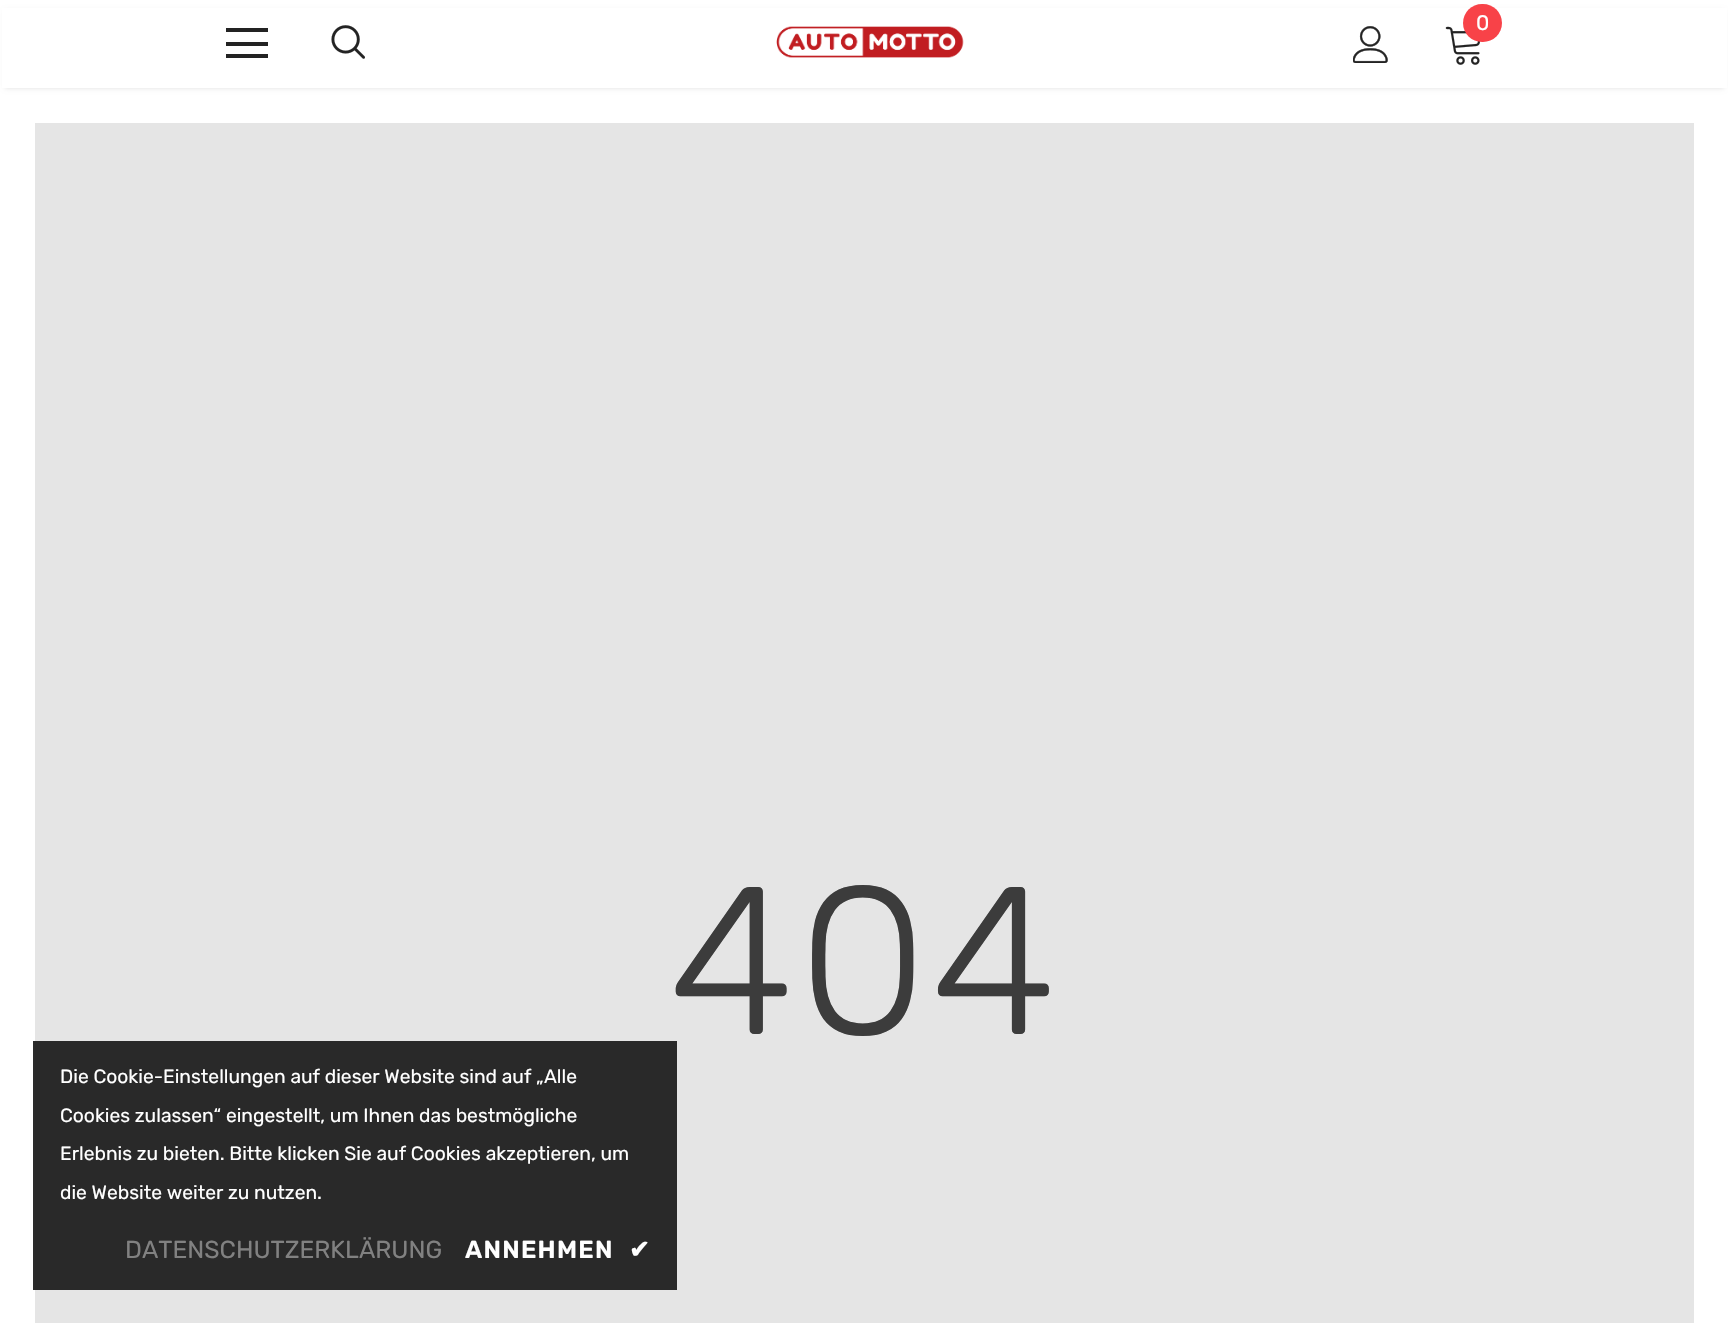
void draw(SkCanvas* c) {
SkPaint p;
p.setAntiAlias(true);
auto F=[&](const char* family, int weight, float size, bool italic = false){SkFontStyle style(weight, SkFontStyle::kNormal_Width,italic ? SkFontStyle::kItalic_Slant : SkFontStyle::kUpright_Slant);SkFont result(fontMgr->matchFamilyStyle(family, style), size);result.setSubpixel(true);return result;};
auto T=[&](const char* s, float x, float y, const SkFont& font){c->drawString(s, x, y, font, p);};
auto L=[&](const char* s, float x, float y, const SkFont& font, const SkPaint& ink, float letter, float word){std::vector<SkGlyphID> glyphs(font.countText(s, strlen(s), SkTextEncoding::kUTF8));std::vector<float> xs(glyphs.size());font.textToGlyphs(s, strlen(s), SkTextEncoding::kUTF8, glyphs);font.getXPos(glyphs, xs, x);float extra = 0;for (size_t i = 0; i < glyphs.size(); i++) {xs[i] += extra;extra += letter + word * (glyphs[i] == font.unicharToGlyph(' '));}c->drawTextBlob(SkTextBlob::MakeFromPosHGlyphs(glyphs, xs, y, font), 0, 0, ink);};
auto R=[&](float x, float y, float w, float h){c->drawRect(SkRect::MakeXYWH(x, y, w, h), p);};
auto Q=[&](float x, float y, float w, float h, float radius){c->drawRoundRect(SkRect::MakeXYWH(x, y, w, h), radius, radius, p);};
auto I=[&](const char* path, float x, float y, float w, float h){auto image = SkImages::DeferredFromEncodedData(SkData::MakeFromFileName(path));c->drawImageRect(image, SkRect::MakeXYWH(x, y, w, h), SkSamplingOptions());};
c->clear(0xffffffff);
p.setColor(0xff2b2b2b);
R(33,1041,2,249);
p.setColor(0x1f000000);
p.setMaskFilter(SkMaskFilter::MakeBlur(kNormal_SkBlurStyle, 2.5));
c->drawRect(SkRect::MakeXYWH(5,11,1719,77),p);
p.setMaskFilter(nullptr);
p.setColor(0xffffffff);
R(2,8,1725,80);
I("1.png",1445,26,36,39);
p.setColor(0xfff84248);
Q(1463,4,39,38,19);
auto f1 = F("Rubik",400,21);
p.setColor(0xffffffff);
T("0",1476,30,f1);
I("2.png",1353,26,35,37);
p.setColor(0xff232323);
R(226,28,42,4);
R(226,42,42,4);
R(226,54,42,4);
I("3.png",331,25,34,34);
I("4.png",776,26,188,32);
p.setColor(0xffe5e5e5);
R(35,123,1659,1200);
p.setColor(0xff292929);
R(35,1041,642,249);
auto f2 = F("Rubik",300,210);
p.setColor(0xff3c3c3c);
L("404",669,1034,f2,p,4,0);
auto f3 = F("Rubik",400,19.25);
p.setColor(0xffffffff);
T("Die Cookie-Einstellungen auf dieser Website sind auf „Alle",60,1083,f3);
T("Cookies zulassen“ eingestellt, um Ihnen das bestmögliche",60,1122,f3);
T("Erlebnis zu bieten. Bitte klicken Sie auf Cookies akzeptieren, um",60,1160,f3);
T("die Website weiter zu nutzen.",60,1199,f3);
auto f4 = F("Rubik",400,24.5);
p.setColor(0xff818181);
T("DATENSCHUTZERKLÄRUNG",125,1258,f4);
auto f5 = F("Rubik",600,24.5);
p.setColor(0xffffffff);
L("ANNEHMEN",465,1258,f5,p,1.25,0);
auto f6 = F("DejaVu Sans",700,24.5);
L("✔",629,1258,f6,p,1.25,0);
}
